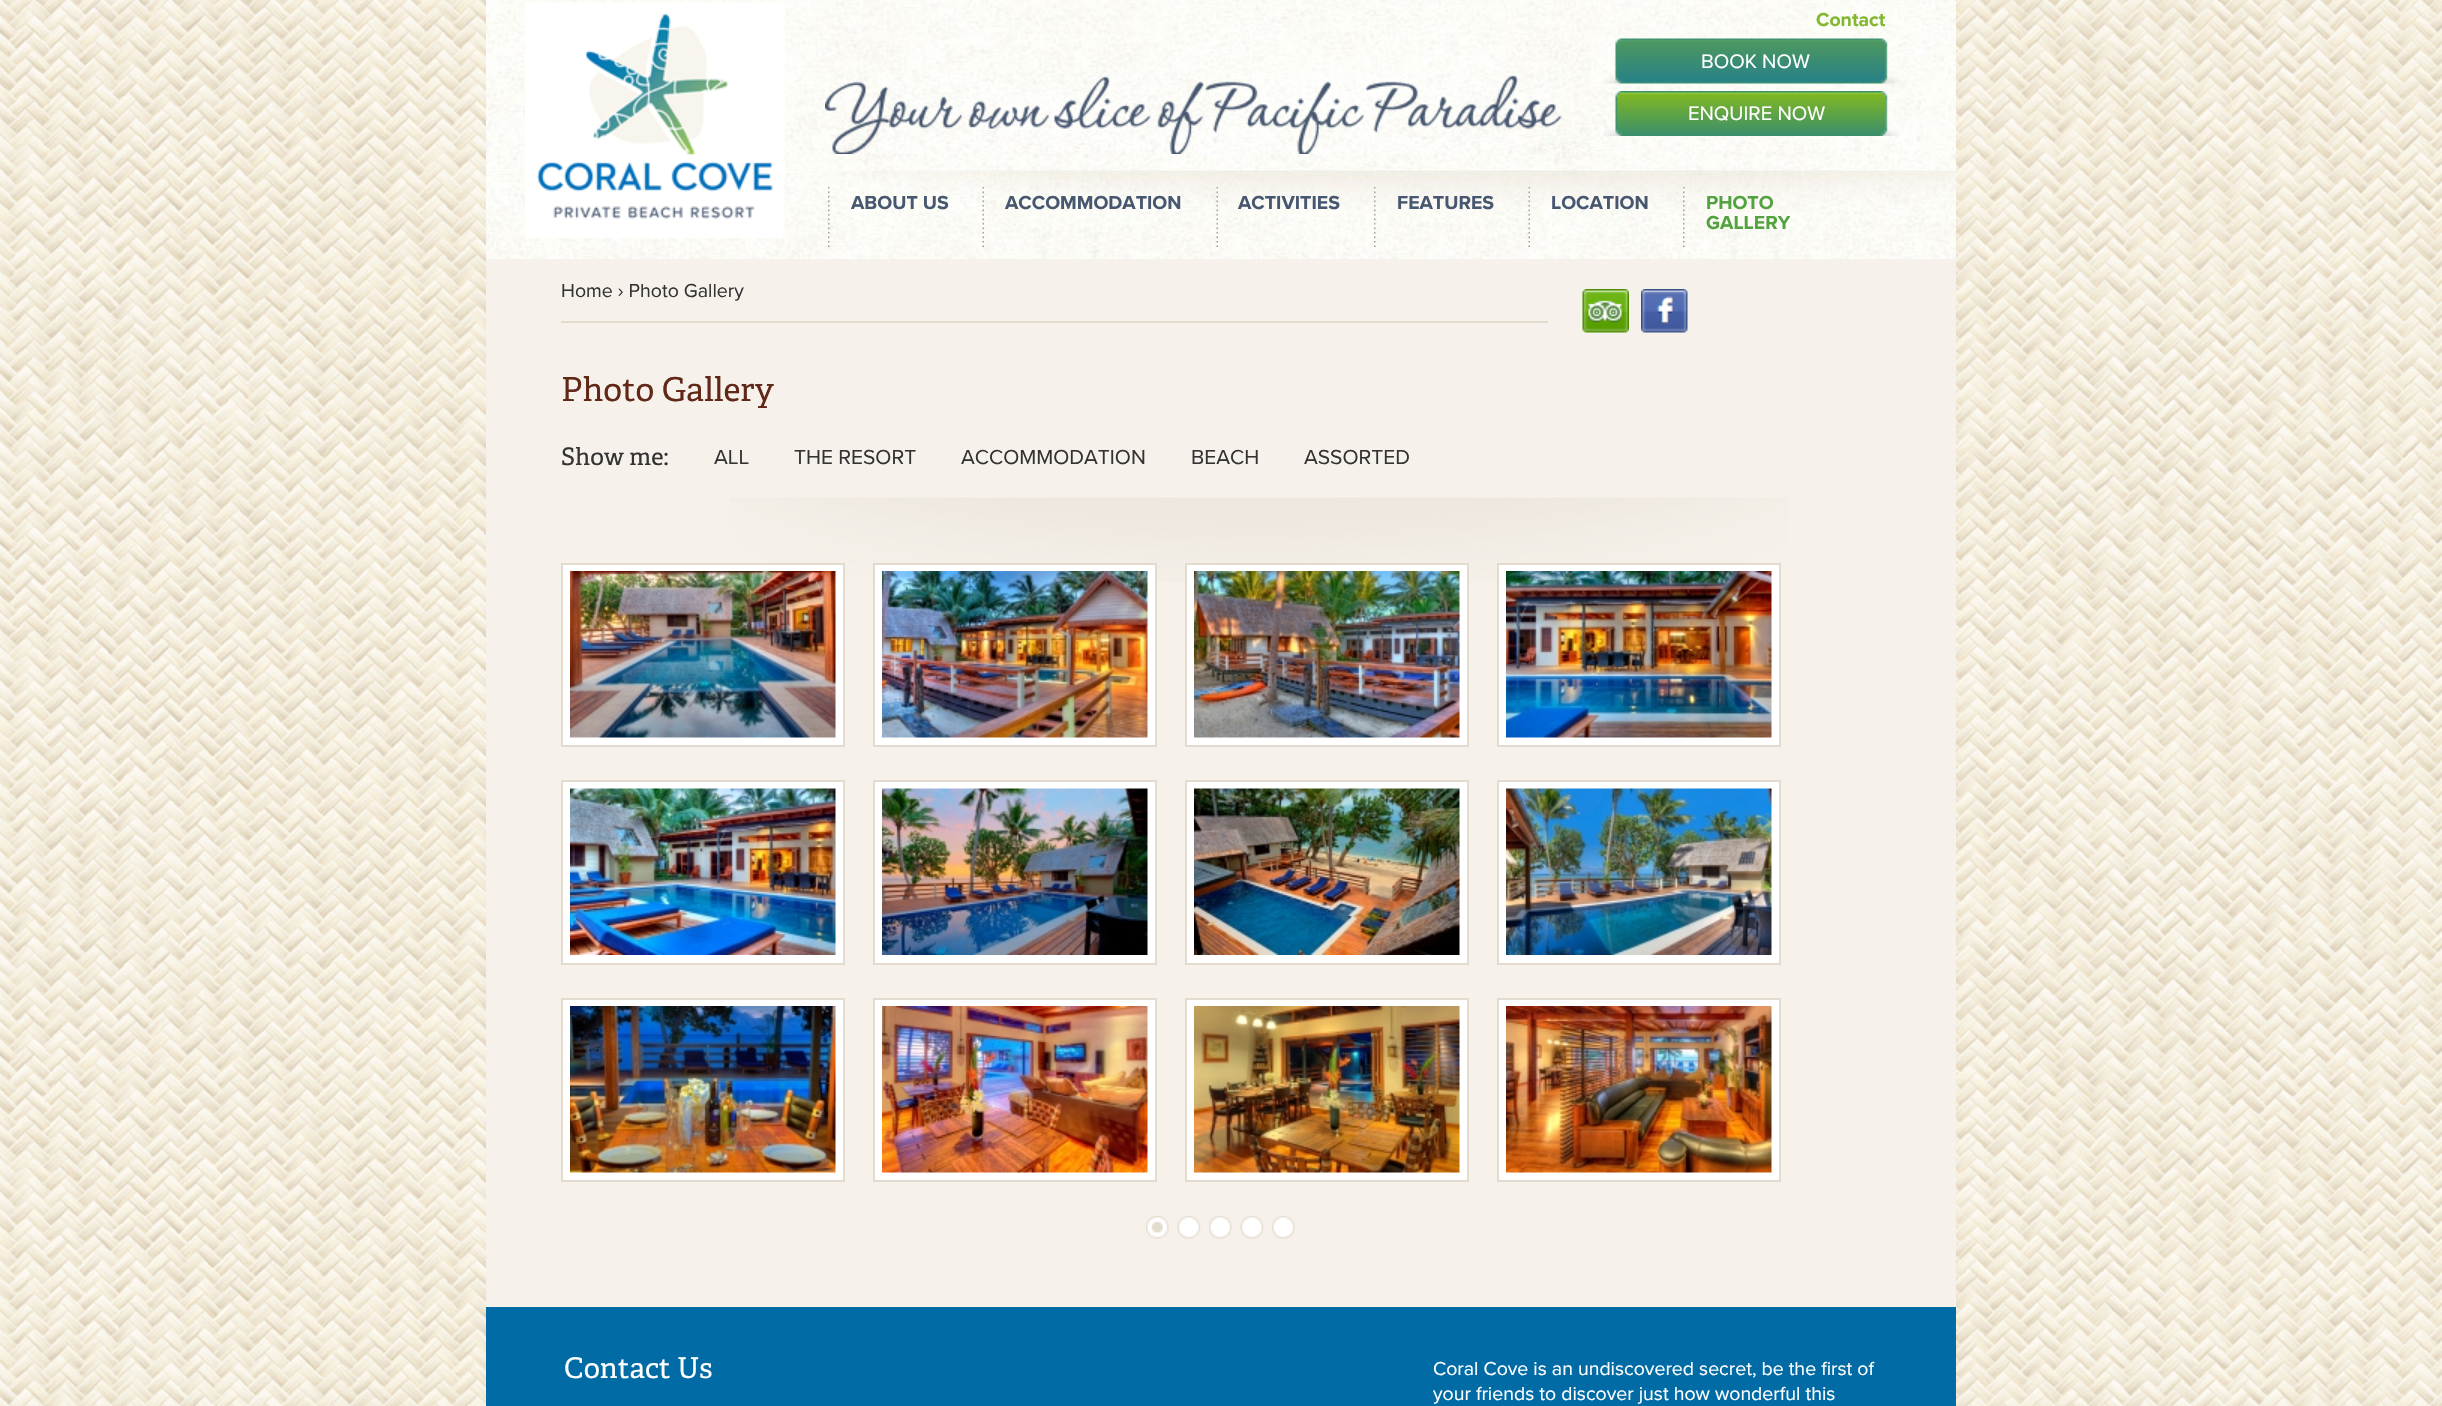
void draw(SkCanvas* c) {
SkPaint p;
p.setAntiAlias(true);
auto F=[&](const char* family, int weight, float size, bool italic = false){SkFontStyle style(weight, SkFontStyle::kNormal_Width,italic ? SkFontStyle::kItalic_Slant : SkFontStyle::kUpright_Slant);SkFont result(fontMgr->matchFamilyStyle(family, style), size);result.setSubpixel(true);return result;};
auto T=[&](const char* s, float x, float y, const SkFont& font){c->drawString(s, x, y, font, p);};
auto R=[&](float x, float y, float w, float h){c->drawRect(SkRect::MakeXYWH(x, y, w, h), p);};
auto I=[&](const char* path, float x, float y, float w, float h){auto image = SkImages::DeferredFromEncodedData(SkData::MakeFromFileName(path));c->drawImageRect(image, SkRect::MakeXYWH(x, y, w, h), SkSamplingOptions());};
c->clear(0xffffffff);
I("1.png",0,0,2442,1406);
p.setColor(0xfff6f2eb);
R(486,259,1470,1048);
I("2.png",486,0,1470,259);
I("3.png",525,2,260,236);
auto f1 = F("Proxima Nova",700,19.5);
p.setColor(0xff84b732);
T("Contact",1816,26,f1);
I("4.png",1603,38,297,46);
auto f2 = F("Proxima Nova",400,20.25);
p.setColor(0xffffffff);
T("BOOK NOW",1701,68,f2);
I("5.png",1603,91,296,45);
T("ENQUIRE NOW",1688,120,f2);
I("6.png",828,185,2,62);
p.setColor(0xff485770);
T("ABOUT US",851,209,f1);
I("7.png",982,185,2,62);
T("ACCOMMODATION",1005,209,f1);
I("8.png",1216,185,2,62);
T("ACTIVITIES",1238,209,f1);
I("9.png",1374,185,2,62);
T("FEATURES",1397,209,f1);
I("10.png",1528,185,2,62);
T("LOCATION",1551,209,f1);
I("11.png",1683,185,2,62);
p.setColor(0xff52a240);
T("PHOTO",1706,209,f1);
T("GALLERY",1706,229,f1);
I("12.png",1582,289,47,44);
I("13.png",1641,289,47,44);
I("14.png",825,73,737,81);
p.setColor(0xffe4dbcf);
R(561,321,987,2);
auto f3 = F("Proxima Nova",400,19.5);
p.setColor(0xff333333);
T("Home › Photo Gallery",561,297,f3);
auto f4 = F("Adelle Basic",400,33);
p.setColor(0xff612717);
T("Photo Gallery",561,401,f4);
auto f5 = F("Adelle Basic",400,24);
p.setColor(0xff333333);
T("Show me:",561,465,f5);
auto f6 = F("Proxima Nova",400,21);
T("ALL",714,464,f6);
T("THE RESORT",794,464,f6);
T("ACCOMMODATION",961,464,f6);
T("BEACH",1191,464,f6);
T("ASSORTED",1304,464,f6);
I("15.png",729,497,1059,85);
p.setColor(0xffffffff);
c->drawRect(SkRect::MakeXYWH(562,564,282,182),p);
p.setStroke(true);
p.setStrokeWidth(2);
p.setColor(0xffe4dbcf);
c->drawRect(SkRect::MakeXYWH(562,564,282,182),p);
I("16.png",570,571,266,167);
p.setStroke(false);
p.setColor(0xffffffff);
c->drawRect(SkRect::MakeXYWH(874,564,282,182),p);
p.setStroke(true);
p.setColor(0xffe4dbcf);
c->drawRect(SkRect::MakeXYWH(874,564,282,182),p);
I("17.png",882,571,266,167);
p.setStroke(false);
p.setColor(0xffffffff);
c->drawRect(SkRect::MakeXYWH(1186,564,282,182),p);
p.setStroke(true);
p.setColor(0xffe4dbcf);
c->drawRect(SkRect::MakeXYWH(1186,564,282,182),p);
I("18.png",1194,571,266,167);
p.setStroke(false);
p.setColor(0xffffffff);
c->drawRect(SkRect::MakeXYWH(1498,564,282,182),p);
p.setStroke(true);
p.setColor(0xffe4dbcf);
c->drawRect(SkRect::MakeXYWH(1498,564,282,182),p);
I("19.png",1506,571,266,167);
p.setStroke(false);
p.setColor(0xffffffff);
c->drawRect(SkRect::MakeXYWH(562,781,282,183),p);
p.setStroke(true);
p.setColor(0xffe4dbcf);
c->drawRect(SkRect::MakeXYWH(562,781,282,183),p);
I("20.png",570,788,266,167);
p.setStroke(false);
p.setColor(0xffffffff);
c->drawRect(SkRect::MakeXYWH(874,781,282,183),p);
p.setStroke(true);
p.setColor(0xffe4dbcf);
c->drawRect(SkRect::MakeXYWH(874,781,282,183),p);
I("21.png",882,788,266,167);
p.setStroke(false);
p.setColor(0xffffffff);
c->drawRect(SkRect::MakeXYWH(1186,781,282,183),p);
p.setStroke(true);
p.setColor(0xffe4dbcf);
c->drawRect(SkRect::MakeXYWH(1186,781,282,183),p);
I("22.png",1194,788,266,167);
p.setStroke(false);
p.setColor(0xffffffff);
c->drawRect(SkRect::MakeXYWH(1498,781,282,183),p);
p.setStroke(true);
p.setColor(0xffe4dbcf);
c->drawRect(SkRect::MakeXYWH(1498,781,282,183),p);
I("23.png",1506,788,266,167);
p.setStroke(false);
p.setColor(0xffffffff);
c->drawRect(SkRect::MakeXYWH(562,999,282,182),p);
p.setStroke(true);
p.setColor(0xffe4dbcf);
c->drawRect(SkRect::MakeXYWH(562,999,282,182),p);
I("24.png",570,1006,266,167);
p.setStroke(false);
p.setColor(0xffffffff);
c->drawRect(SkRect::MakeXYWH(874,999,282,182),p);
p.setStroke(true);
p.setColor(0xffe4dbcf);
c->drawRect(SkRect::MakeXYWH(874,999,282,182),p);
I("25.png",882,1006,266,167);
p.setStroke(false);
p.setColor(0xffffffff);
c->drawRect(SkRect::MakeXYWH(1186,999,282,182),p);
p.setStroke(true);
p.setColor(0xffe4dbcf);
c->drawRect(SkRect::MakeXYWH(1186,999,282,182),p);
I("26.png",1194,1006,266,167);
p.setStroke(false);
p.setColor(0xffffffff);
c->drawRect(SkRect::MakeXYWH(1498,999,282,182),p);
p.setStroke(true);
p.setColor(0xffe4dbcf);
c->drawRect(SkRect::MakeXYWH(1498,999,282,182),p);
I("27.png",1506,1006,266,167);
I("28.png",1146,1216,23,23);
I("29.png",1177,1216,24,23);
I("30.png",1209,1216,23,23);
I("29.png",1240,1216,24,23);
I("30.png",1272,1216,23,23);
p.setStroke(false);
p.setColor(0xff006ba4);
R(486,1307,1470,99);
auto f7 = F("Adelle Basic",400,28.5);
p.setColor(0xffffffff);
T("Contact Us",564,1378,f7);
T("Coral Cove is an undiscovered secret, be the first of",1433,1375,f3);
T("your friends to discover just how wonderful this",1433,1400,f3);
}
